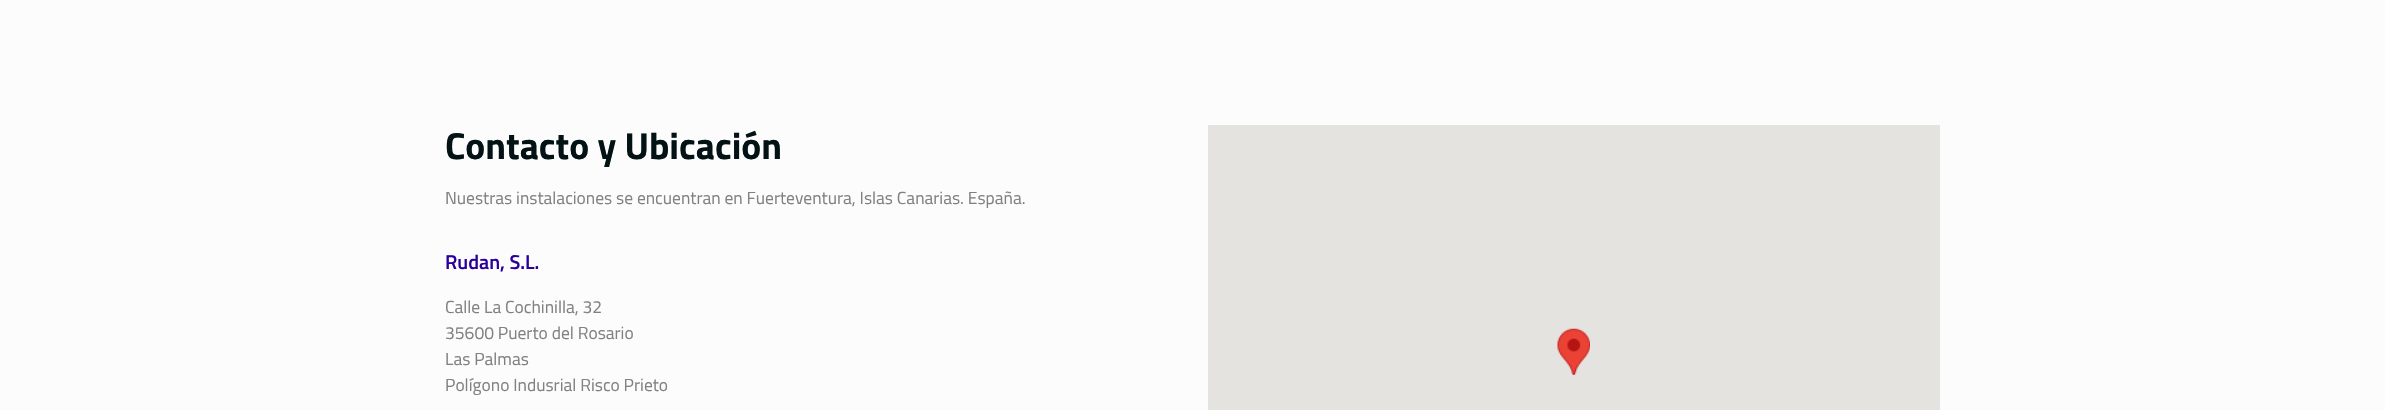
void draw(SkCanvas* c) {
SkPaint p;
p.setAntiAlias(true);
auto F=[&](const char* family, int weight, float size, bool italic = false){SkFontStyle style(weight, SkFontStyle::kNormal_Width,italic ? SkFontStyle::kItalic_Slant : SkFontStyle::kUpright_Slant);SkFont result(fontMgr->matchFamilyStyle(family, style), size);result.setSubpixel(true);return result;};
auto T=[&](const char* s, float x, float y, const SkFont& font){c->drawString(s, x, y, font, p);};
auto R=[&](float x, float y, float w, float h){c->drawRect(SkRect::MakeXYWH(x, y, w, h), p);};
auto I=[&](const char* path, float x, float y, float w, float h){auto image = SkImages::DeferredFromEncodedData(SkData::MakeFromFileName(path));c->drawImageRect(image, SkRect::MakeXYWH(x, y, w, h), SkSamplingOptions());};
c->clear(0xfffcfcfc);
auto f1 = F("Titillium Web",700,37.5);
p.setColor(0xff031214);
T("Contacto y Ubicación",445,159,f1);
auto f2 = F("Titillium Web",400,17.5);
p.setColor(0xff818181);
T("Nuestras instalaciones se encuentran en Fuerteventura, Islas Canarias. España.",445,204,f2);
auto f3 = F("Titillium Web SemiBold",600,20);
p.setColor(0xff2a009c);
T("Rudan, S.L.",445,269,f3);
p.setColor(0xff818181);
T("Calle La Cochinilla, 32",445,313,f2);
T("35600 Puerto del Rosario",445,339,f2);
T("Las Palmas",445,365,f2);
T("Polígono Indusrial Risco Prieto",445,391,f2);
p.setColor(0xffe5e3df);
R(1208,125,732,285);
I("1.png",1557,328,33,47);
}
